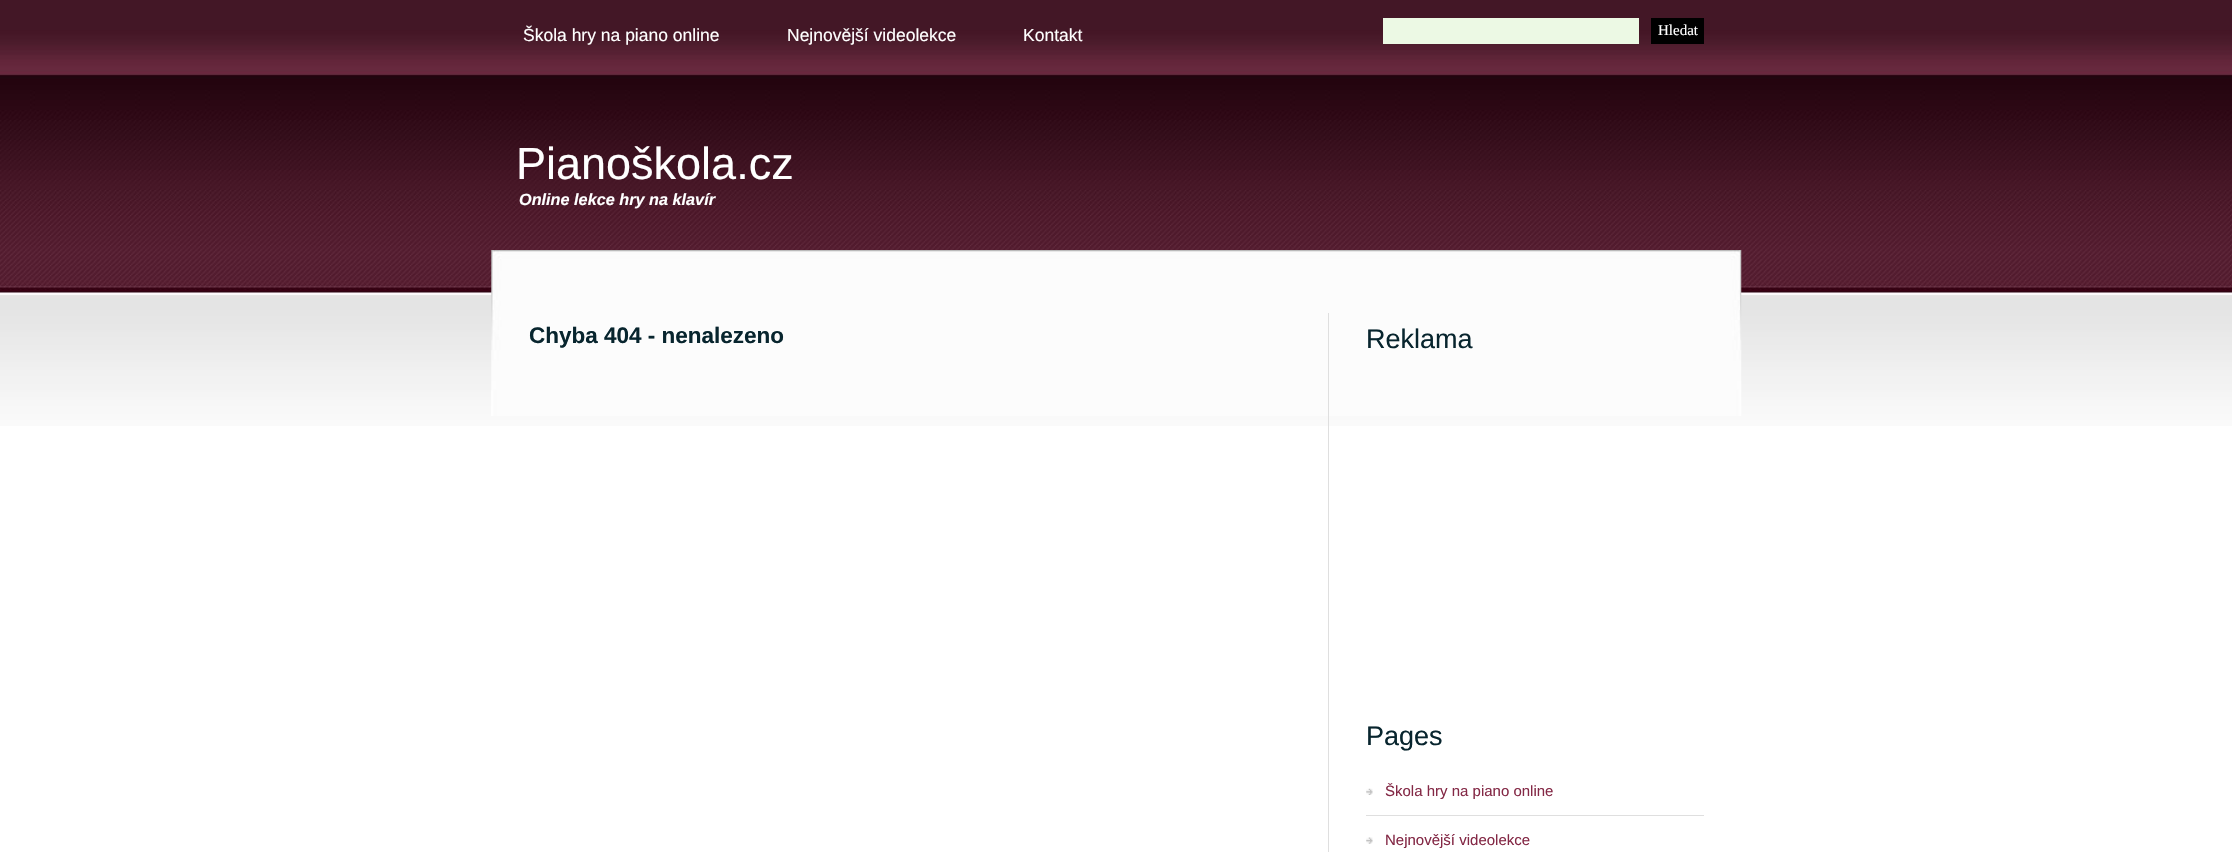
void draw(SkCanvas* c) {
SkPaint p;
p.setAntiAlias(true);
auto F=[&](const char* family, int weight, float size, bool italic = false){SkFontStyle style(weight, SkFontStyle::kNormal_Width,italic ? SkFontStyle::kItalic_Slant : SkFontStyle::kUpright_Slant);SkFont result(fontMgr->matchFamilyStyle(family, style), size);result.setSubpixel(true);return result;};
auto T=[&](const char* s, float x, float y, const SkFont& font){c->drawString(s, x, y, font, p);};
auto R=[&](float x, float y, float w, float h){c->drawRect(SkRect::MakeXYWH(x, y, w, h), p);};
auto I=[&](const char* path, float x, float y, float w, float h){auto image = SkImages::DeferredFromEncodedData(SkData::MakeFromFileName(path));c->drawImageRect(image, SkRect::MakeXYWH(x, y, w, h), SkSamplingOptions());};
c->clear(0xffffffff);
I("1.png",0,0,2232,426);
auto f1 = F("Liberation Sans",400,17.5);
p.setColor(0xffffffff);
T("Škola hry na piano online",523,41,f1);
T("Nejnovější videolekce",787,41,f1);
T("Kontakt",1023,41,f1);
p.setColor(0xffecf9e4);
R(1383,18,256,26);
p.setColor(0xff000000);
R(1651,18,53,26);
auto f2 = F("Liberation Serif",400,15);
p.setColor(0xffffffff);
T("Hledat",1658,35,f2);
auto f3 = F("Liberation Sans",400,45);
T("Pianoškola.cz",516,179,f3);
auto f4 = F("Liberation Sans",700,16.25,true);
T("Online lekce hry na klavír",519,205,f4);
I("2.png",491,250,1251,166);
auto f5 = F("Liberation Sans",700,22.5);
p.setColor(0xff08252e);
T("Chyba 404 - nenalezeno",529,343,f5);
p.setColor(0xffdfdfdf);
R(1328,313,1,539);
auto f6 = F("Liberation Sans",400,27);
p.setColor(0xff08252e);
T("Reklama",1366,348,f6);
T("Pages",1366,745,f6);
I("3.png",1366,788,7,7);
p.setColor(0xffdfdfdf);
R(1366,815,338,1);
auto f7 = F("Liberation Sans",400,15);
p.setColor(0xff842946);
T("Škola hry na piano online",1385,796,f7);
I("4.png",1366,837,7,7);
T("Nejnovější videolekce",1385,845,f7);
}
